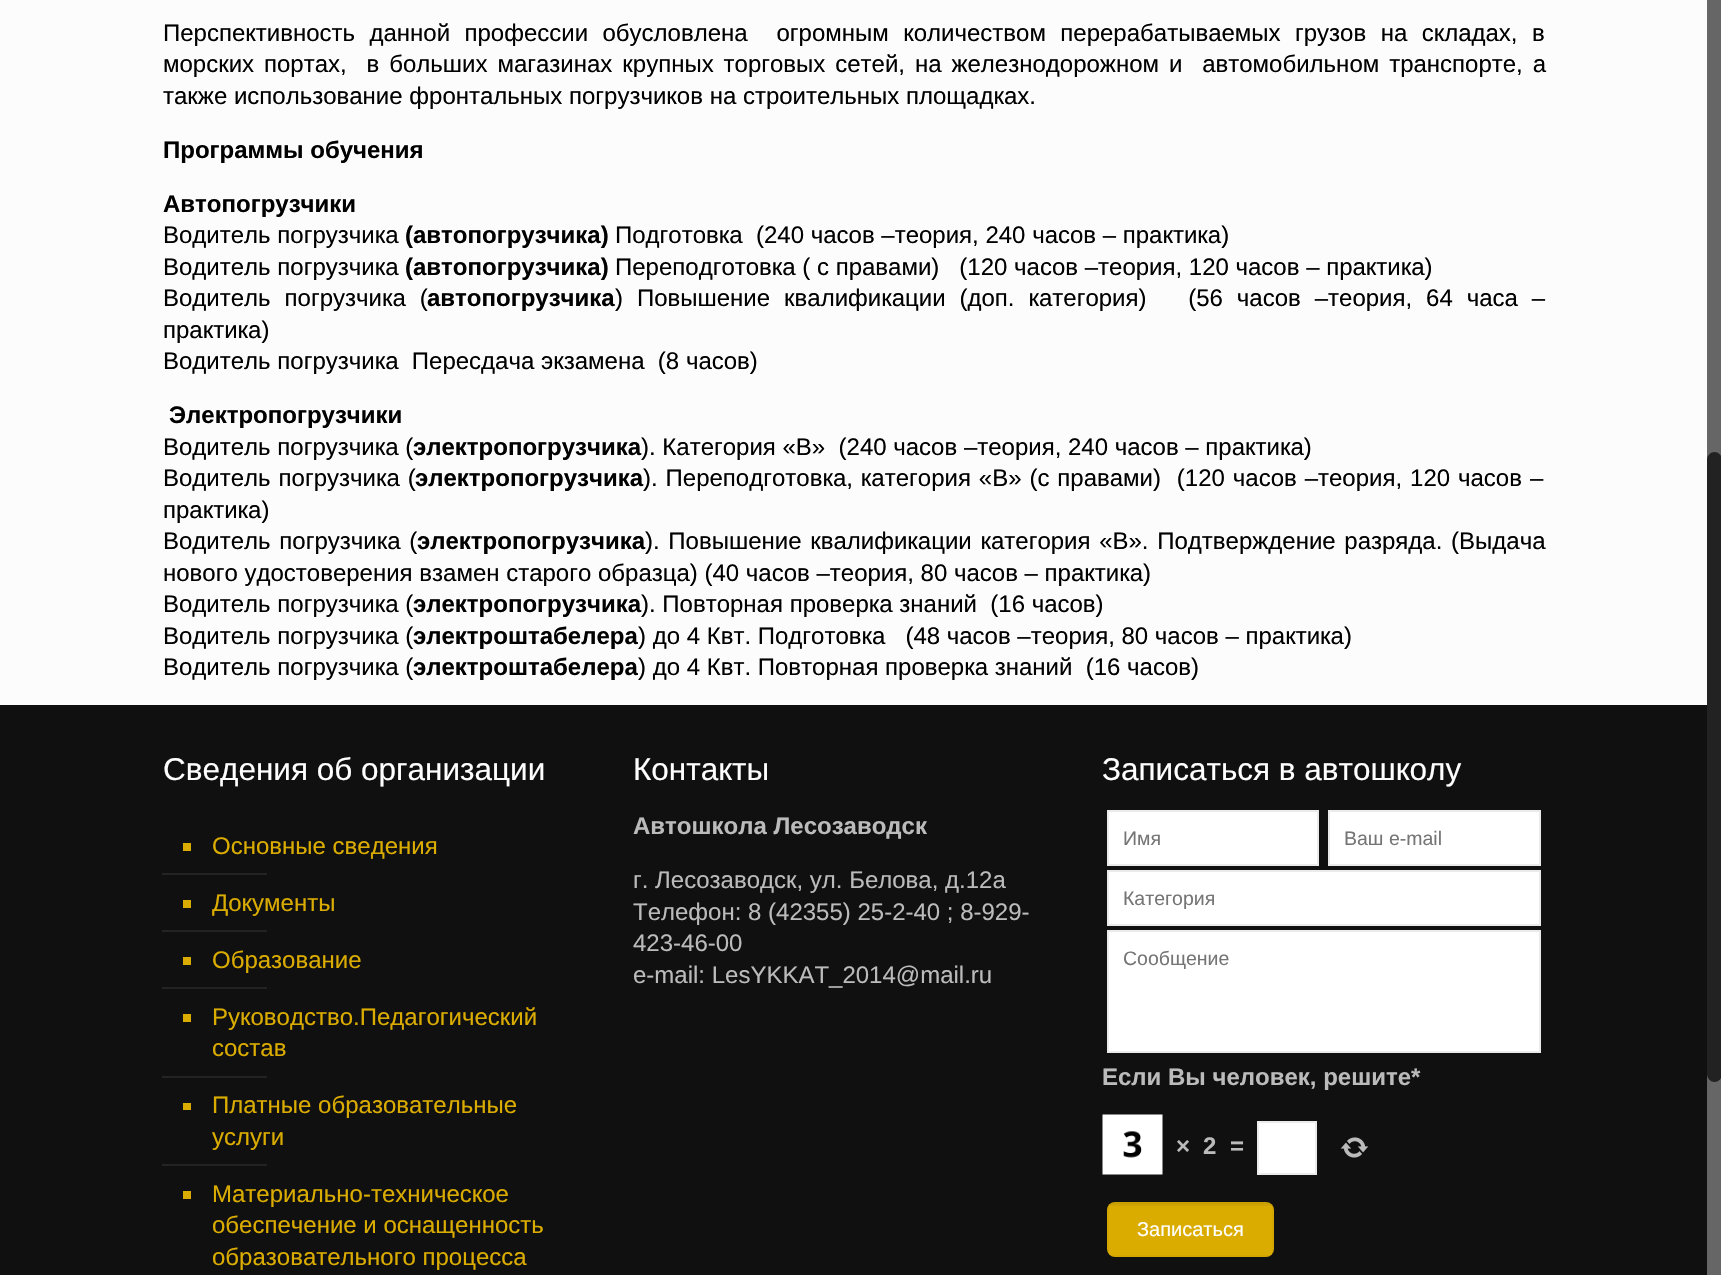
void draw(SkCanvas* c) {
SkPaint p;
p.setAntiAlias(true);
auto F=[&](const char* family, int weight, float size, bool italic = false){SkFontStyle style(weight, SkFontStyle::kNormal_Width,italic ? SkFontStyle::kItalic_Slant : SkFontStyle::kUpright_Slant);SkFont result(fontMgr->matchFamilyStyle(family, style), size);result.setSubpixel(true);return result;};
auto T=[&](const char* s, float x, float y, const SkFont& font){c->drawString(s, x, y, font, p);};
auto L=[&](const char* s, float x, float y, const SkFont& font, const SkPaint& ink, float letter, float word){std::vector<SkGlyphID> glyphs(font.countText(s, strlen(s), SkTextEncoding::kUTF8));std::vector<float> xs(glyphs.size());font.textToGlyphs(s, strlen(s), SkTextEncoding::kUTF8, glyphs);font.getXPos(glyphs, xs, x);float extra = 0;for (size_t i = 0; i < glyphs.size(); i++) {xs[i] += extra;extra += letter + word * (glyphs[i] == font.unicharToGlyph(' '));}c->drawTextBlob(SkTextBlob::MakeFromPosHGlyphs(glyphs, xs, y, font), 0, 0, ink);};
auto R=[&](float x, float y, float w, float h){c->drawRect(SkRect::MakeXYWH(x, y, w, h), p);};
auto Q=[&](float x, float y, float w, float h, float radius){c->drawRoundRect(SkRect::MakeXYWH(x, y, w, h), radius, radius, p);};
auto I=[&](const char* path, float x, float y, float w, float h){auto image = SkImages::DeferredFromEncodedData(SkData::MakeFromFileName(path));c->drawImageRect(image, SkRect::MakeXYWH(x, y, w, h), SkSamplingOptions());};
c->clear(0xfffcfcfc);
auto f1 = F("Liberation Sans",400,24);
p.setColor(0xff000000);
L("Перспективность данной профессии обусловлена  огромным количеством перерабатываемых грузов на складах, в",163,41,f1,p,0,7.75);
L("морских портах,  в больших магазинах крупных торговых сетей, на железнодорожном и  автомобильном транспорте, а",163,72,f1,p,0,3.25);
T("также использование фронтальных погрузчиков на строительных площадках.",163,104,f1);
auto f2 = F("Liberation Sans",700,24);
T("Программы обучения",163,158,f2);
T("Автопогрузчики",163,212,f2);
T("Водитель погрузчика",163,243,f1);
T("(автопогрузчика)",405,243,f2);
T("Подготовка  (240 часов –теория, 240 часов – практика)",615,243,f1);
T("Водитель погрузчика",163,275,f1);
T("(автопогрузчика)",405,275,f2);
T("Переподготовка ( с правами)   (120 часов –теория, 120 часов – практика)",615,275,f1);
L("Водитель погрузчика (",163,306,f1,p,0,7.25);
T("автопогрузчика",427,306,f2);
L(") Повышение квалификации (доп. категория)   (56 часов –теория, 64 часа –",615,306,f1,p,0,7.25);
T("практика)",163,338,f1);
T("Водитель погрузчика  Пересдача экзамена  (8 часов)",163,369,f1);
T("Электропогрузчики",169,423,f2);
T("Водитель погрузчика (",163,455,f1);
T("электропогрузчика",413,455,f2);
T("). Категория «В»  (240 часов –теория, 240 часов – практика)",641,455,f1);
L("Водитель погрузчика (",163,486,f1,p,0,1.25);
T("электропогрузчика",415,486,f2);
L("). Переподготовка, категория «В» (с правами)  (120 часов –теория, 120 часов –",643,486,f1,p,0,1.25);
T("практика)",163,518,f1);
L("Водитель погрузчика (",163,549,f1,p,0,2);
T("электропогрузчика",417,549,f2);
L("). Повышение квалификации категория «В». Подтверждение разряда. (Выдача",645,549,f1,p,0,2);
T("нового удостоверения взамен старого образца) (40 часов –теория, 80 часов – практика)",163,581,f1);
T("Водитель погрузчика (",163,612,f1);
T("электропогрузчика",413,612,f2);
T("). Повторная проверка знаний  (16 часов)",641,612,f1);
T("Водитель погрузчика (",163,644,f1);
T("электроштабелера",413,644,f2);
T(") до 4 Квт. Подготовка   (48 часов –теория, 80 часов – практика)",638,644,f1);
T("Водитель погрузчика (",163,675,f1);
T("электроштабелера",413,675,f2);
T(") до 4 Квт. Повторная проверка знаний  (16 часов)",638,675,f1);
p.setColor(0xff101010);
R(0,705,1707,570);
auto f3 = F("Liberation Sans",400,31.5);
p.setColor(0xffffffff);
T("Сведения об организации",163,780,f3);
p.setColor(0xffdbac00);
R(183,843,8,8);
T("Основные сведения",212,854,f1);
p.setColor(0xff232323);
R(162,873,105,2);
p.setColor(0xffdbac00);
R(183,900,8,8);
T("Документы",212,911,f1);
p.setColor(0xff232323);
R(162,930,105,2);
p.setColor(0xffdbac00);
R(183,957,8,8);
T("Образование",212,968,f1);
p.setColor(0xff232323);
R(162,987,105,2);
p.setColor(0xffdbac00);
R(183,1014,8,8);
T("Руководство.Педагогический",212,1025,f1);
T("состав",212,1056,f1);
p.setColor(0xff232323);
R(162,1076,105,2);
p.setColor(0xffdbac00);
R(183,1103,8,7);
T("Платные образовательные",212,1113,f1);
T("услуги",212,1145,f1);
p.setColor(0xff232323);
R(162,1164,105,2);
p.setColor(0xffdbac00);
R(183,1191,8,8);
T("Материально-техническое",212,1202,f1);
T("обеспечение и оснащенность",212,1233,f1);
T("образовательного процесса",212,1265,f1);
p.setColor(0xffffffff);
T("Контакты",633,780,f3);
p.setColor(0xffbbbbbb);
T("Автошкола Лесозаводск",633,834,f2);
T("г. Лесозаводск, ул. Белова, д.12а",633,888,f1);
T("Телефон: 8 (42355) 25-2-40 ; 8-929-",633,920,f1);
T("423-46-00",633,951,f1);
T("e-mail: LesYKKAT_2014@mail.ru",633,983,f1);
p.setColor(0xffffffff);
T("Записаться в автошколу",1102,780,f3);
c->drawRect(SkRect::MakeXYWH(1108,811,210,54),p);
p.setStroke(true);
p.setStrokeWidth(2);
p.setColor(0xffebebeb);
c->drawRect(SkRect::MakeXYWH(1108,811,210,54),p);
auto f4 = F("Liberation Sans",400,19.5);
p.setStroke(false);
p.setColor(0xff757575);
T("Имя",1123,845,f4);
p.setColor(0xffffffff);
c->drawRect(SkRect::MakeXYWH(1329,811,211,54),p);
p.setStroke(true);
p.setColor(0xffebebeb);
c->drawRect(SkRect::MakeXYWH(1329,811,211,54),p);
p.setStroke(false);
p.setColor(0xff757575);
T("Ваш e-mail",1344,845,f4);
p.setColor(0xffffffff);
c->drawRect(SkRect::MakeXYWH(1108,871,432,54),p);
p.setStroke(true);
p.setColor(0xffebebeb);
c->drawRect(SkRect::MakeXYWH(1108,871,432,54),p);
p.setStroke(false);
p.setColor(0xff757575);
T("Категория",1123,905,f4);
p.setColor(0xffffffff);
c->drawRect(SkRect::MakeXYWH(1108,931,432,121),p);
p.setStroke(true);
p.setColor(0xffebebeb);
c->drawRect(SkRect::MakeXYWH(1108,931,432,121),p);
p.setStroke(false);
p.setColor(0xff757575);
T("Сообщение",1123,965,f4);
p.setColor(0xffbbbbbb);
T("Если Вы человек, решите*",1102,1085,f2);
I("1.png",1102,1114,61,61);
T("×",1176,1154,f2);
T("2",1203,1154,f2);
T("=",1230,1154,f2);
p.setColor(0xffffffff);
c->drawRect(SkRect::MakeXYWH(1258,1122,58,52),p);
p.setStroke(true);
p.setColor(0xffebebeb);
c->drawRect(SkRect::MakeXYWH(1258,1122,58,52),p);
I("2.png",1340,1137,29,21);
p.setStroke(false);
p.setColor(0xffdbac00);
Q(1107,1202,167,55,8);
p.setColor(0x0d000000);
R(1109,1202,163,4);
p.setStroke(true);
p.setColor(0x08000000);
c->drawRect(SkRect::MakeXYWH(1108,1203,165,53),p);
auto f5 = F("Liberation Sans",400,20);
p.setStroke(false);
p.setColor(0xffffffff);
T("Записаться",1137,1236,f5);
p.setColor(0xff666666);
R(1707,0,14,1275);
p.setColor(0xff222222);
Q(1707,452,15,630,7.5);
}
